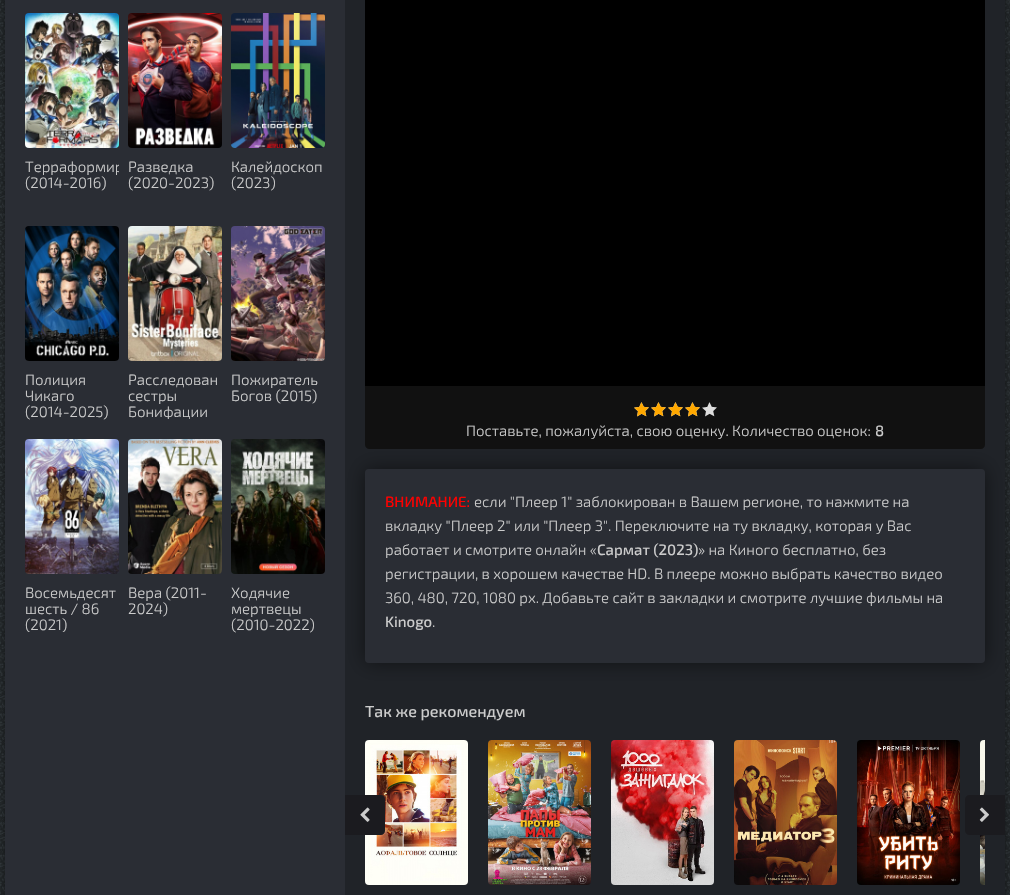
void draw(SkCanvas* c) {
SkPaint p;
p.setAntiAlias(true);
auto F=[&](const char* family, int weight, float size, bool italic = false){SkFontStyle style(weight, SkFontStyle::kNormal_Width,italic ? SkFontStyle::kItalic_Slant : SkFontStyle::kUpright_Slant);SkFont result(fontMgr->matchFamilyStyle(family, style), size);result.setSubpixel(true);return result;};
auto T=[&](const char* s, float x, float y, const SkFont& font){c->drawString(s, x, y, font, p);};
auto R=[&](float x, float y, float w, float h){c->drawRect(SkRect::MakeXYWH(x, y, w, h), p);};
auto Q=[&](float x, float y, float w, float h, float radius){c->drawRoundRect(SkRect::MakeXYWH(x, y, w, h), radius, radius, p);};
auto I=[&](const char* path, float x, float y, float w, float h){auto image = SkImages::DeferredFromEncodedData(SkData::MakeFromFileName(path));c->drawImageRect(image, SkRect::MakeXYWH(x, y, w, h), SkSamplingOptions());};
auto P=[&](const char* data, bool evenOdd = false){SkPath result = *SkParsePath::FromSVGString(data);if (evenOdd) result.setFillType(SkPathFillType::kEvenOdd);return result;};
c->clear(0xffffffff);
I("1.png",0,0,1010,895);
p.setColor(0xcc000000);
p.setMaskFilter(SkMaskFilter::MakeBlur(kNormal_SkBlurStyle, 10));
c->drawRect(SkRect::MakeXYWH(5,-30,1000,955),p);
p.setMaskFilter(nullptr);
p.setColor(0xff202328);
R(345,0,660,895);
p.setColor(0xff111111);
c->drawPath(P("M365 386h620v59c0 2-2 4-4 4h-612c-2 0-4-2-4-4z"),p);
p.setColor(0x80000000);
p.setMaskFilter(SkMaskFilter::MakeBlur(kNormal_SkBlurStyle, 10));
c->drawRoundRect(SkRect::MakeXYWH(365,469,620,194),4,4,p);
p.setMaskFilter(nullptr);
p.setColor(0xff2a2d34);
R(5,0,340,895);
I("2.png",25,13,94,135);
c->save();
c->clipRect(SkRect::MakeXYWH(25,158,94,48));
auto f1 = F("Exo 2",300,15);
p.setColor(0xffcccccc);
T("Терраформир",25,172,f1);
c->restore();
T("(2014-2016)",25,188,f1);
I("3.png",128,13,94,135);
T("Разведка",128,172,f1);
T("(2020-2023)",128,188,f1);
I("4.png",231,13,94,135);
T("Калейдоскоп",231,172,f1);
T("(2023)",231,188,f1);
I("5.png",25,226,94,135);
T("Полиция",25,385,f1);
T("Чикаго",25,401,f1);
T("(2014-2025)",25,417,f1);
I("6.png",128,226,94,135);
T("Расследован",128,385,f1);
T("сестры",128,401,f1);
c->save();
c->clipRect(SkRect::MakeXYWH(128,371,94,48));
T("Бонифации",128,417,f1);
c->restore();
I("7.png",231,226,94,135);
T("Пожиратель",231,385,f1);
T("Богов (2015)",231,401,f1);
I("8.png",25,439,94,135);
T("Восемьдесят",25,598,f1);
T("шесть / 86",25,614,f1);
c->save();
c->clipRect(SkRect::MakeXYWH(25,584,94,48));
T("(2021)",25,630,f1);
c->restore();
I("9.png",128,439,94,135);
T("Вера (2011-",128,598,f1);
T("2024)",128,614,f1);
I("10.png",231,439,94,135);
T("Ходячие",231,598,f1);
T("мертвецы",231,614,f1);
T("(2010-2022)",231,630,f1);
p.setColor(0xff000000);
R(365,0,620,386);
I("11.png",634,402,83,15);
I("12.png",634,402,66,15);
p.setColor(0xffcccccc);
T("Поставьте, пожалуйста, свою оценку. Количество оценок:",466,436,f1);
auto f2 = F("Exo 2",500,15);
T("8",875,436,f2);
p.setColor(0xff2a2d34);
Q(365,469,620,194,4);
p.setColor(0xffff0000);
T("ВНИМАНИЕ:",385,507,f2);
p.setColor(0xffcccccc);
T("если \"Плеер 1\" заблокирован в Вашем регионе, то нажмите на",474,507,f1);
T("вкладку \"Плеер 2\" или \"Плеер 3\". Переключите на ту вкладку, которая у Вас",385,531,f1);
T("работает и смотрите онлайн «",385,555,f1);
T("Сармат (2023)",597,555,f2);
T("» на Киного бесплатно, без",698,555,f1);
T("регистрации, в хорошем качестве HD. В плеере можно выбрать качество видео",385,579,f1);
T("360, 480, 720, 1080 px. Добавьте сайт в закладки и смотрите лучшие фильмы на",385,603,f1);
T("Kinogo",385,627,f2);
T(".",432,627,f1);
auto f3 = F("Exo 2",500,16);
T("Так же рекомендуем",365,717,f3);
I("13.png",365,740,103,145);
I("14.png",488,740,103,145);
I("15.png",611,740,103,145);
I("16.png",734,740,103,145);
I("17.png",857,740,103,145);
I("18.png",980,740,5,145);
p.setColor(0xff1b1b1f);
c->drawPath(P("M345 795h36c2 0 4 2 4 4v32c0 2-2 4-4 4h-36z"),p);
I("19.png",360,807,10,15);
c->drawPath(P("M969 795h36v40h-36c-2 0-4-2-4-4v-32c0-2 2-4 4-4z"),p);
I("20.png",979,807,10,15);
}
